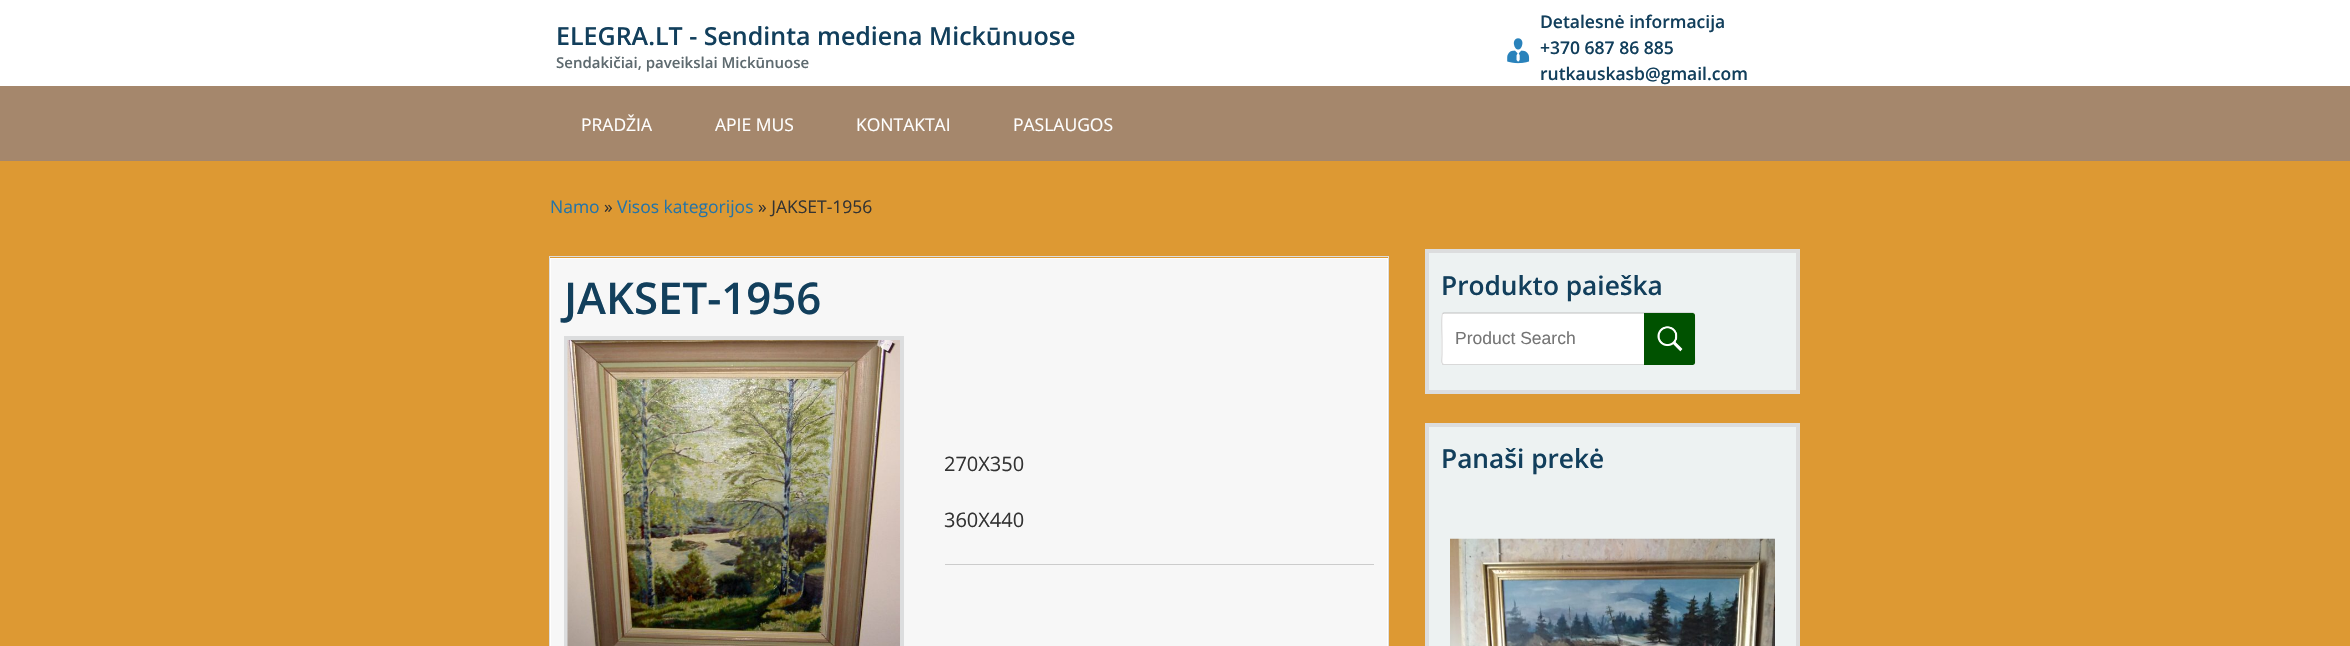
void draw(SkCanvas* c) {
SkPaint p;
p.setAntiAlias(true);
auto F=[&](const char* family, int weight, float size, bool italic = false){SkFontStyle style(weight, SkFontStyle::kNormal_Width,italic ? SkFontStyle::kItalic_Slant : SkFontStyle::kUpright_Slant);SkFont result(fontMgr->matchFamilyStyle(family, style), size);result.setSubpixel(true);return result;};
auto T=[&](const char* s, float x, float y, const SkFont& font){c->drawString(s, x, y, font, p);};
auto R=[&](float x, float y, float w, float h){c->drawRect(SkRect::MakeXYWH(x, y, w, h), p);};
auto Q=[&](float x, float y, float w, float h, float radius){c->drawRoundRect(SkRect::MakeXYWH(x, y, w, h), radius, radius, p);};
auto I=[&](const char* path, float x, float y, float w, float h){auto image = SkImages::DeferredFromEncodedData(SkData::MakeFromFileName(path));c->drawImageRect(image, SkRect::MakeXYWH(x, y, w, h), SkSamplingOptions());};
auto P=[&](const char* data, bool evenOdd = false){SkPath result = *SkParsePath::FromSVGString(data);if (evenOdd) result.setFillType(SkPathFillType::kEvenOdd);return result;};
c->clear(0xffdd9933);
p.setColor(0xffffffff);
R(0,0,2350,86);
auto f1 = F("Open Sans",600,25);
p.setColor(0xff123f5c);
T("ELEGRA.LT - Sendinta mediena Mickūnuose",556,45,f1);
auto f2 = F("Open Sans",600,15);
p.setColor(0xff5e6a6f);
T("Sendakičiai, paveikslai Mickūnuose",556,68,f2);
auto f3 = F("Open Sans",600,17.5);
p.setColor(0xff123f5c);
T("Detalesnė informacija",1540,28,f3);
I("1.png",1507,38,23,26);
T("+370 687 86 885",1540,54,f3);
T("rutkauskasb@gmail.com",1540,80,f3);
p.setColor(0xffa5876c);
R(0,86,2350,75);
auto f4 = F("Open Sans",400,17.5);
p.setColor(0xffffffff);
T("PRADŽIA",581,131,f4);
T("APIE MUS",715,131,f4);
T("KONTAKTAI",856,131,f4);
T("PASLAUGOS",1013,131,f4);
p.setColor(0xff2574a7);
T("Namo",550,213,f4);
p.setColor(0xff333333);
T("»",604,213,f4);
p.setColor(0xff2574a7);
T("Visos kategorijos",617,213,f4);
p.setColor(0xff333333);
T("» JAKSET-1956",758,213,f4);
p.setColor(0xfff7f7f7);
c->drawRect(SkRect::MakeXYWH(550.5,258.5,837,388),p);
p.setStroke(true);
p.setStrokeWidth(1);
p.setColor(0xffffffff);
c->drawRect(SkRect::MakeXYWH(550.5,258.5,837,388),p);
p.setColor(0xffdedede);
c->drawRect(SkRect::MakeXYWH(549.5,256.5,839,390),p);
auto f5 = F("Open Sans",600,43.75);
p.setStroke(false);
p.setColor(0xff123f5c);
T("JAKSET-1956",564,314,f5);
p.setStroke(true);
p.setStrokeWidth(4);
p.setColor(0xffdcddde);
c->drawRect(SkRect::MakeXYWH(566,338,336,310),p);
I("2.png",567,340,333,306);
p.setStroke(false);
p.setColor(0xffcccccc);
R(945,564,429,1);
auto f6 = F("Open Sans",400,20);
p.setColor(0xff333333);
T("270X350",944,471,f6);
T("360X440",944,527,f6);
p.setColor(0xffedf2f2);
c->drawRect(SkRect::MakeXYWH(1427,251,371,141),p);
p.setStroke(true);
p.setColor(0xffdcddde);
c->drawRect(SkRect::MakeXYWH(1427,251,371,141),p);
auto f7 = F("Open Sans",600,26.25);
p.setStroke(false);
p.setColor(0xff123f5c);
T("Produkto paieška",1441,295,f7);
p.setColor(0xffffffff);
Q(1441,313,254,52,2.5);
p.setStroke(true);
p.setStrokeWidth(1.2);
p.setColor(0xffc0c0c0);
c->drawPath(P("M1442.5 313.5l1.5-.5h248.5l1.5 .5"),p);
p.setColor(0xffd9d9d9);
c->drawPath(P("M1694 313.5c1.5 2 .5 22 .5 25.5v15.5c0 4 1.5 10-2 10h-248.5c-3.5 0-2-6-2-10v-15.5c0-3.5-1-23.5 .5-25.5"),p);
auto f8 = F("Liberation Sans",400,17.5);
p.setStroke(false);
p.setColor(0xff757575);
T("Product Search",1455,344,f8);
p.setColor(0xff005200);
c->drawPath(P("M1644 313h48.5c1.5 0 2.5 1 2.5 2.5v47c0 1.5-1 2.5-2.5 2.5h-48.5z"),p);
I("3.png",1657,326,26,26);
p.setColor(0xffedf2f2);
c->drawRect(SkRect::MakeXYWH(1427,425,371,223),p);
p.setStroke(true);
p.setStrokeWidth(4);
p.setColor(0xffdcddde);
c->drawRect(SkRect::MakeXYWH(1427,425,371,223),p);
p.setStroke(false);
p.setColor(0xff123f5c);
T("Panaši prekė",1441,468,f7);
I("4.png",1450,538,325,108);
}
